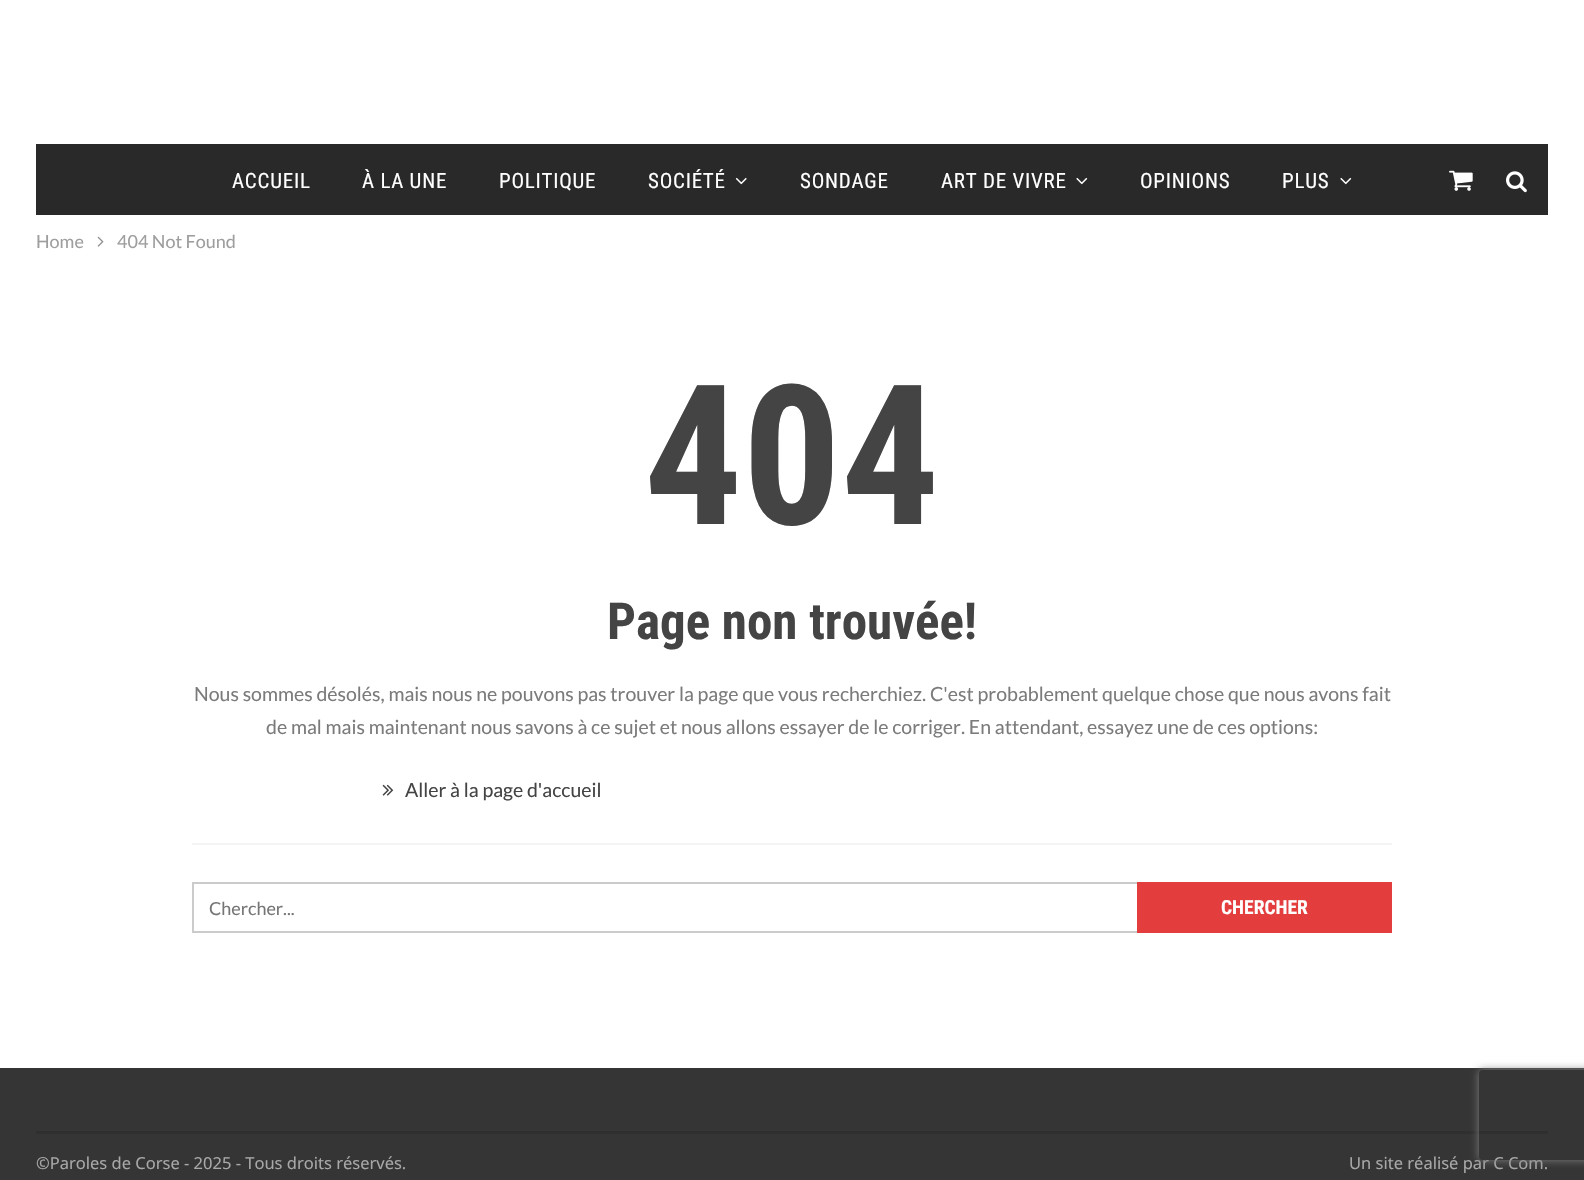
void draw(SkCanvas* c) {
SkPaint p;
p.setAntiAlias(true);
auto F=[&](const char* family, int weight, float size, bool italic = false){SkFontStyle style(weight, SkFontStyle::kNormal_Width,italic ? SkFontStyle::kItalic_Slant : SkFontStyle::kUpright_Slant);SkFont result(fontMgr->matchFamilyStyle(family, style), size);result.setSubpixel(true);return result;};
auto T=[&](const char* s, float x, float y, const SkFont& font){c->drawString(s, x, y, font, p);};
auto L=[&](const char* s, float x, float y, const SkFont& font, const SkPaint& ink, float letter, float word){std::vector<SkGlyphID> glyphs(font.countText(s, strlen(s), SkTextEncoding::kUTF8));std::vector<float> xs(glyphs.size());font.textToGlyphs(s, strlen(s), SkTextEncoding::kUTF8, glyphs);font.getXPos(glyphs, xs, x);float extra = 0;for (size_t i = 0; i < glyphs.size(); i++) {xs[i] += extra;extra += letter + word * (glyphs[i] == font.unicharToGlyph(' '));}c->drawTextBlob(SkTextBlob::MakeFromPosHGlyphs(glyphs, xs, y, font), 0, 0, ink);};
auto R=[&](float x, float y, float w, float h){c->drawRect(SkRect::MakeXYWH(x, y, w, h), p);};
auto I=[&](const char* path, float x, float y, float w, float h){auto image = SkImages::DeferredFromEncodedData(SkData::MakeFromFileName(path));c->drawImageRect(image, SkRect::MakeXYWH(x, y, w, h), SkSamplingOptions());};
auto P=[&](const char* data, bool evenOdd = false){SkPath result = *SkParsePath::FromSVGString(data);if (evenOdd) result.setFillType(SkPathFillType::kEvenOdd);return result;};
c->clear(0xffffffff);
p.setColor(0xff292929);
R(36,144,1512,71);
auto f1 = F("Roboto Condensed",400,21);
p.setColor(0xffffffff);
L("ACCUEIL",232,188,f1,p,.75,0);
L("À LA UNE",362,188,f1,p,.75,0);
L("POLITIQUE",499,188,f1,p,.75,0);
L("SOCIÉTÉ",648,188,f1,p,.75,0);
I("1.png",735,177,12,8);
L("SONDAGE",800,188,f1,p,.75,0);
L("ART DE VIVRE",941,188,f1,p,.75,0);
I("2.png",1076,177,12,8);
L("OPINIONS",1140,188,f1,p,.75,0);
L("PLUS",1282,188,f1,p,.75,0);
I("2.png",1340,177,12,8);
I("3.png",1449,170,24,21);
I("4.png",1506,171,21,22);
auto f2 = F("Lato",400,18);
p.setColor(0xff9e9e9e);
T("Home",36,248,f2);
I("5.png",97,236,7,11);
T("404 Not Found",117,248,f2);
auto f3 = F("Roboto Condensed",700,195);
p.setColor(0xff444444);
T("404",644,524,f3);
auto f4 = F("Roboto Condensed",700,51);
T("Page non trouvée!",607,639,f4);
auto f5 = F("Lato",400,19.5);
p.setColor(0xff7b7b7b);
T("Nous sommes désolés, mais nous ne pouvons pas trouver la page que vous recherchiez. C'est probablement quelque chose que nous avons fait",194,701,f5);
T("de mal mais maintenant nous savons à ce sujet et nous allons essayer de le corriger. En attendant, essayez une de ces options:",266,734,f5);
I("6.png",382,784,12,12);
p.setColor(0xff444444);
T("Aller à la page d'accueil",405,797,f5);
p.setColor(0xfff4f4f4);
R(192,843,1200,2);
p.setStroke(true);
p.setStrokeWidth(2);
p.setColor(0xffcbcbcb);
c->drawRect(SkRect::MakeXYWH(193,883,1198,49),p);
p.setStroke(false);
p.setColor(0xff757575);
T("Chercher...",209,915,f2);
p.setColor(0xffe33d3d);
R(1137,882,255,51);
auto f6 = F("Roboto Condensed",700,19.5);
p.setColor(0xffffffff);
T("CHERCHER",1221,914,f6);
p.setColor(0xff353535);
R(0,1068,1584,112);
p.setColor(0xff2f2f2f);
R(36,1131,1512,3);
auto f7 = F("Noto Sans",400,16.5);
p.setColor(0xffa8a8a8);
T("©Paroles de Corse - 2025 - Tous droits réservés.",36,1169,f7);
T("Un site réalisé par C Com.",1349,1169,f7);
c->save();
c->clipPath(P("M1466 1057h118v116h-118zm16 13h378c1.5 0 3 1.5 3 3v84c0 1.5-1.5 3-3 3h-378c-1.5 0-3-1.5-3-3v-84c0-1.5 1.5-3 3-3z",true),true);
p.setColor(0xff808080);
p.setMaskFilter(SkMaskFilter::MakeBlur(kNormal_SkBlurStyle, 4));
c->drawRoundRect(SkRect::MakeXYWH(1479,1070,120,90),3,3,p);
p.setMaskFilter(nullptr);
c->restore();
}
